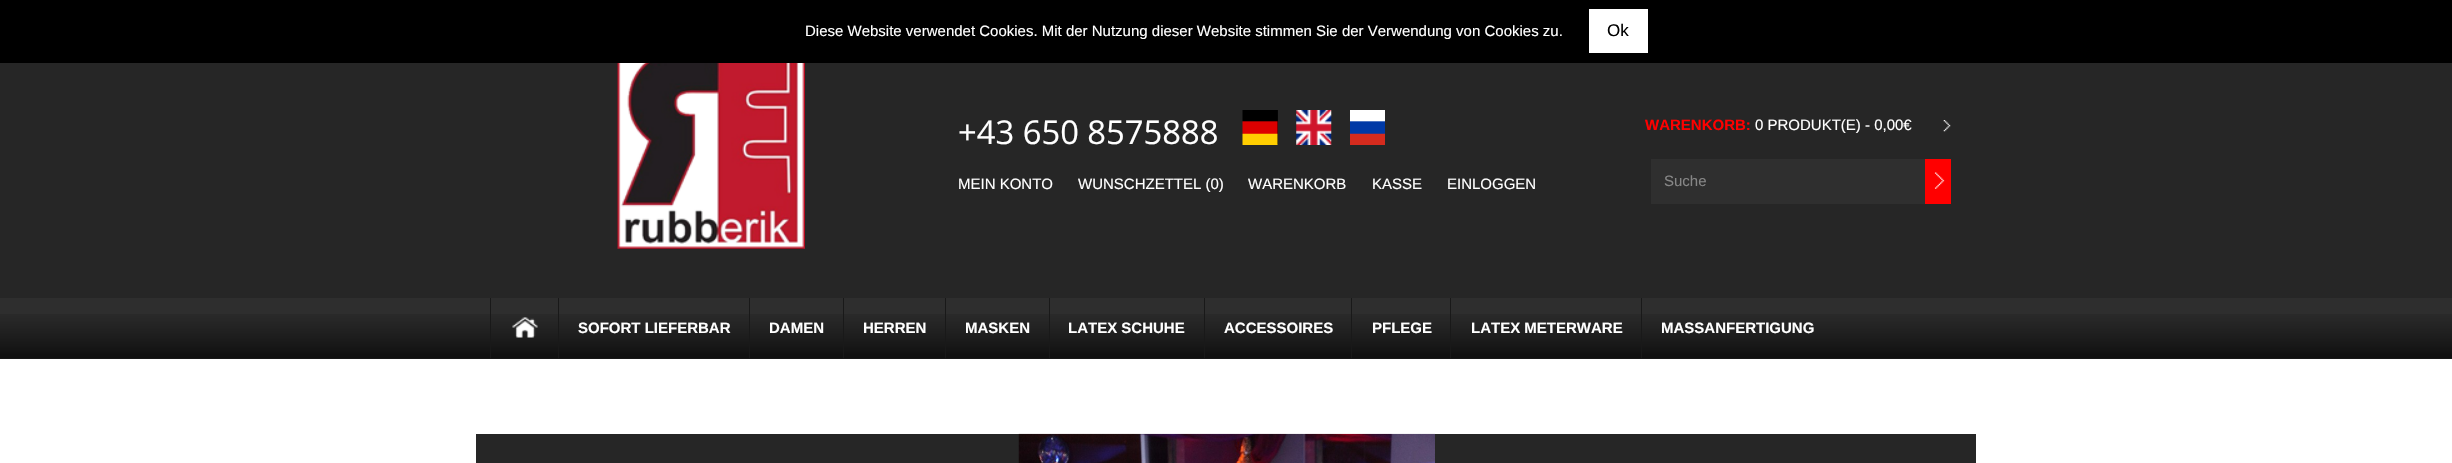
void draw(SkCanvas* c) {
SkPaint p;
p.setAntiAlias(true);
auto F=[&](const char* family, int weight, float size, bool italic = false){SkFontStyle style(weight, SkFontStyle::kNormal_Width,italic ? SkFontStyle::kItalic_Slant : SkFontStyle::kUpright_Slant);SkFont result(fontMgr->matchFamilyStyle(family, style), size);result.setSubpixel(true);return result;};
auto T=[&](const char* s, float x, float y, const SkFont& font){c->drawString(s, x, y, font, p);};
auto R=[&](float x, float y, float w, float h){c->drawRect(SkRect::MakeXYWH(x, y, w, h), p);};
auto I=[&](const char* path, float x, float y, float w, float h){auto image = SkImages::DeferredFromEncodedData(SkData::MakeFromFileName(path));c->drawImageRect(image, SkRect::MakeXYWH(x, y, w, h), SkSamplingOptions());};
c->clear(0xffffffff);
p.setColor(0xff000000);
R(0,0,2452,63);
auto f1 = F("Liberation Sans",400,15);
p.setColor(0xffffffff);
T("Diese Website verwendet Cookies. Mit der Nutzung dieser Website stimmen Sie der Verwendung von Cookies zu.",805,36,f1);
R(1589,9,59,44);
auto f2 = F("Liberation Sans",400,17);
p.setColor(0xff000000);
T("Ok",1607,36,f2);
p.setColor(0xff262626);
R(0,63,2452,235);
I("1.png",617,63,188,186);
auto f3 = F("Open Sans",400,32.75);
p.setColor(0xffffffff);
T("+43 650 8575888",958,144,f3);
p.setColor(0xff070707);
R(1277,110,1,34);
I("2.png",1242,110,36,35);
I("3.png",1296,110,36,35);
I("4.png",1350,110,35,35);
auto f4 = F("Liberation Sans",700,15);
p.setColor(0xffff0000);
T("WARENKORB:",1645,130,f4);
I("5.png",1943,120,8,12);
p.setColor(0xffffffff);
T("0 PRODUKT(E) - 0,00€",1755,130,f1);
T("MEIN KONTO",958,189,f1);
T("WUNSCHZETTEL (0)",1078,189,f1);
T("WARENKORB",1248,189,f1);
T("KASSE",1372,189,f1);
T("EINLOGGEN",1447,189,f1);
p.setColor(0xff2f2f2f);
R(1651,159,274,45);
p.setColor(0xff868686);
T("Suche",1664,186,f1);
p.setColor(0xffff0000);
R(1925,159,26,45);
I("6.png",1934,172,11,17);
p.setColor(0xff2e2e2e);
R(0,298,2452,61);
I("7.png",0,314,2452,45);
I("8.png",512,317,26,21);
p.setColor(0xff191919);
R(490,298,1,61);
R(558,298,1,61);
p.setColor(0xffffffff);
T("SOFORT LIEFERBAR",578,333,f4);
p.setColor(0xff191919);
R(749,298,1,61);
p.setColor(0xffffffff);
T("DAMEN",769,333,f4);
p.setColor(0xff191919);
R(843,298,1,61);
p.setColor(0xffffffff);
T("HERREN",863,333,f4);
p.setColor(0xff191919);
R(945,298,1,61);
p.setColor(0xffffffff);
T("MASKEN",965,333,f4);
p.setColor(0xff191919);
R(1049,298,1,61);
p.setColor(0xffffffff);
T("LATEX SCHUHE",1068,333,f4);
p.setColor(0xff191919);
R(1204,298,1,61);
p.setColor(0xffffffff);
T("ACCESSOIRES",1224,333,f4);
p.setColor(0xff191919);
R(1351,298,1,61);
p.setColor(0xffffffff);
T("PFLEGE",1372,333,f4);
p.setColor(0xff191919);
R(1450,298,1,61);
p.setColor(0xffffffff);
T("LATEX METERWARE",1471,333,f4);
p.setColor(0xff191919);
R(1641,298,1,61);
p.setColor(0xffffffff);
T("MASSANFERTIGUNG",1661,333,f4);
p.setColor(0xff262626);
R(476,434,1500,29);
I("9.png",1018,433,417,30);
}
